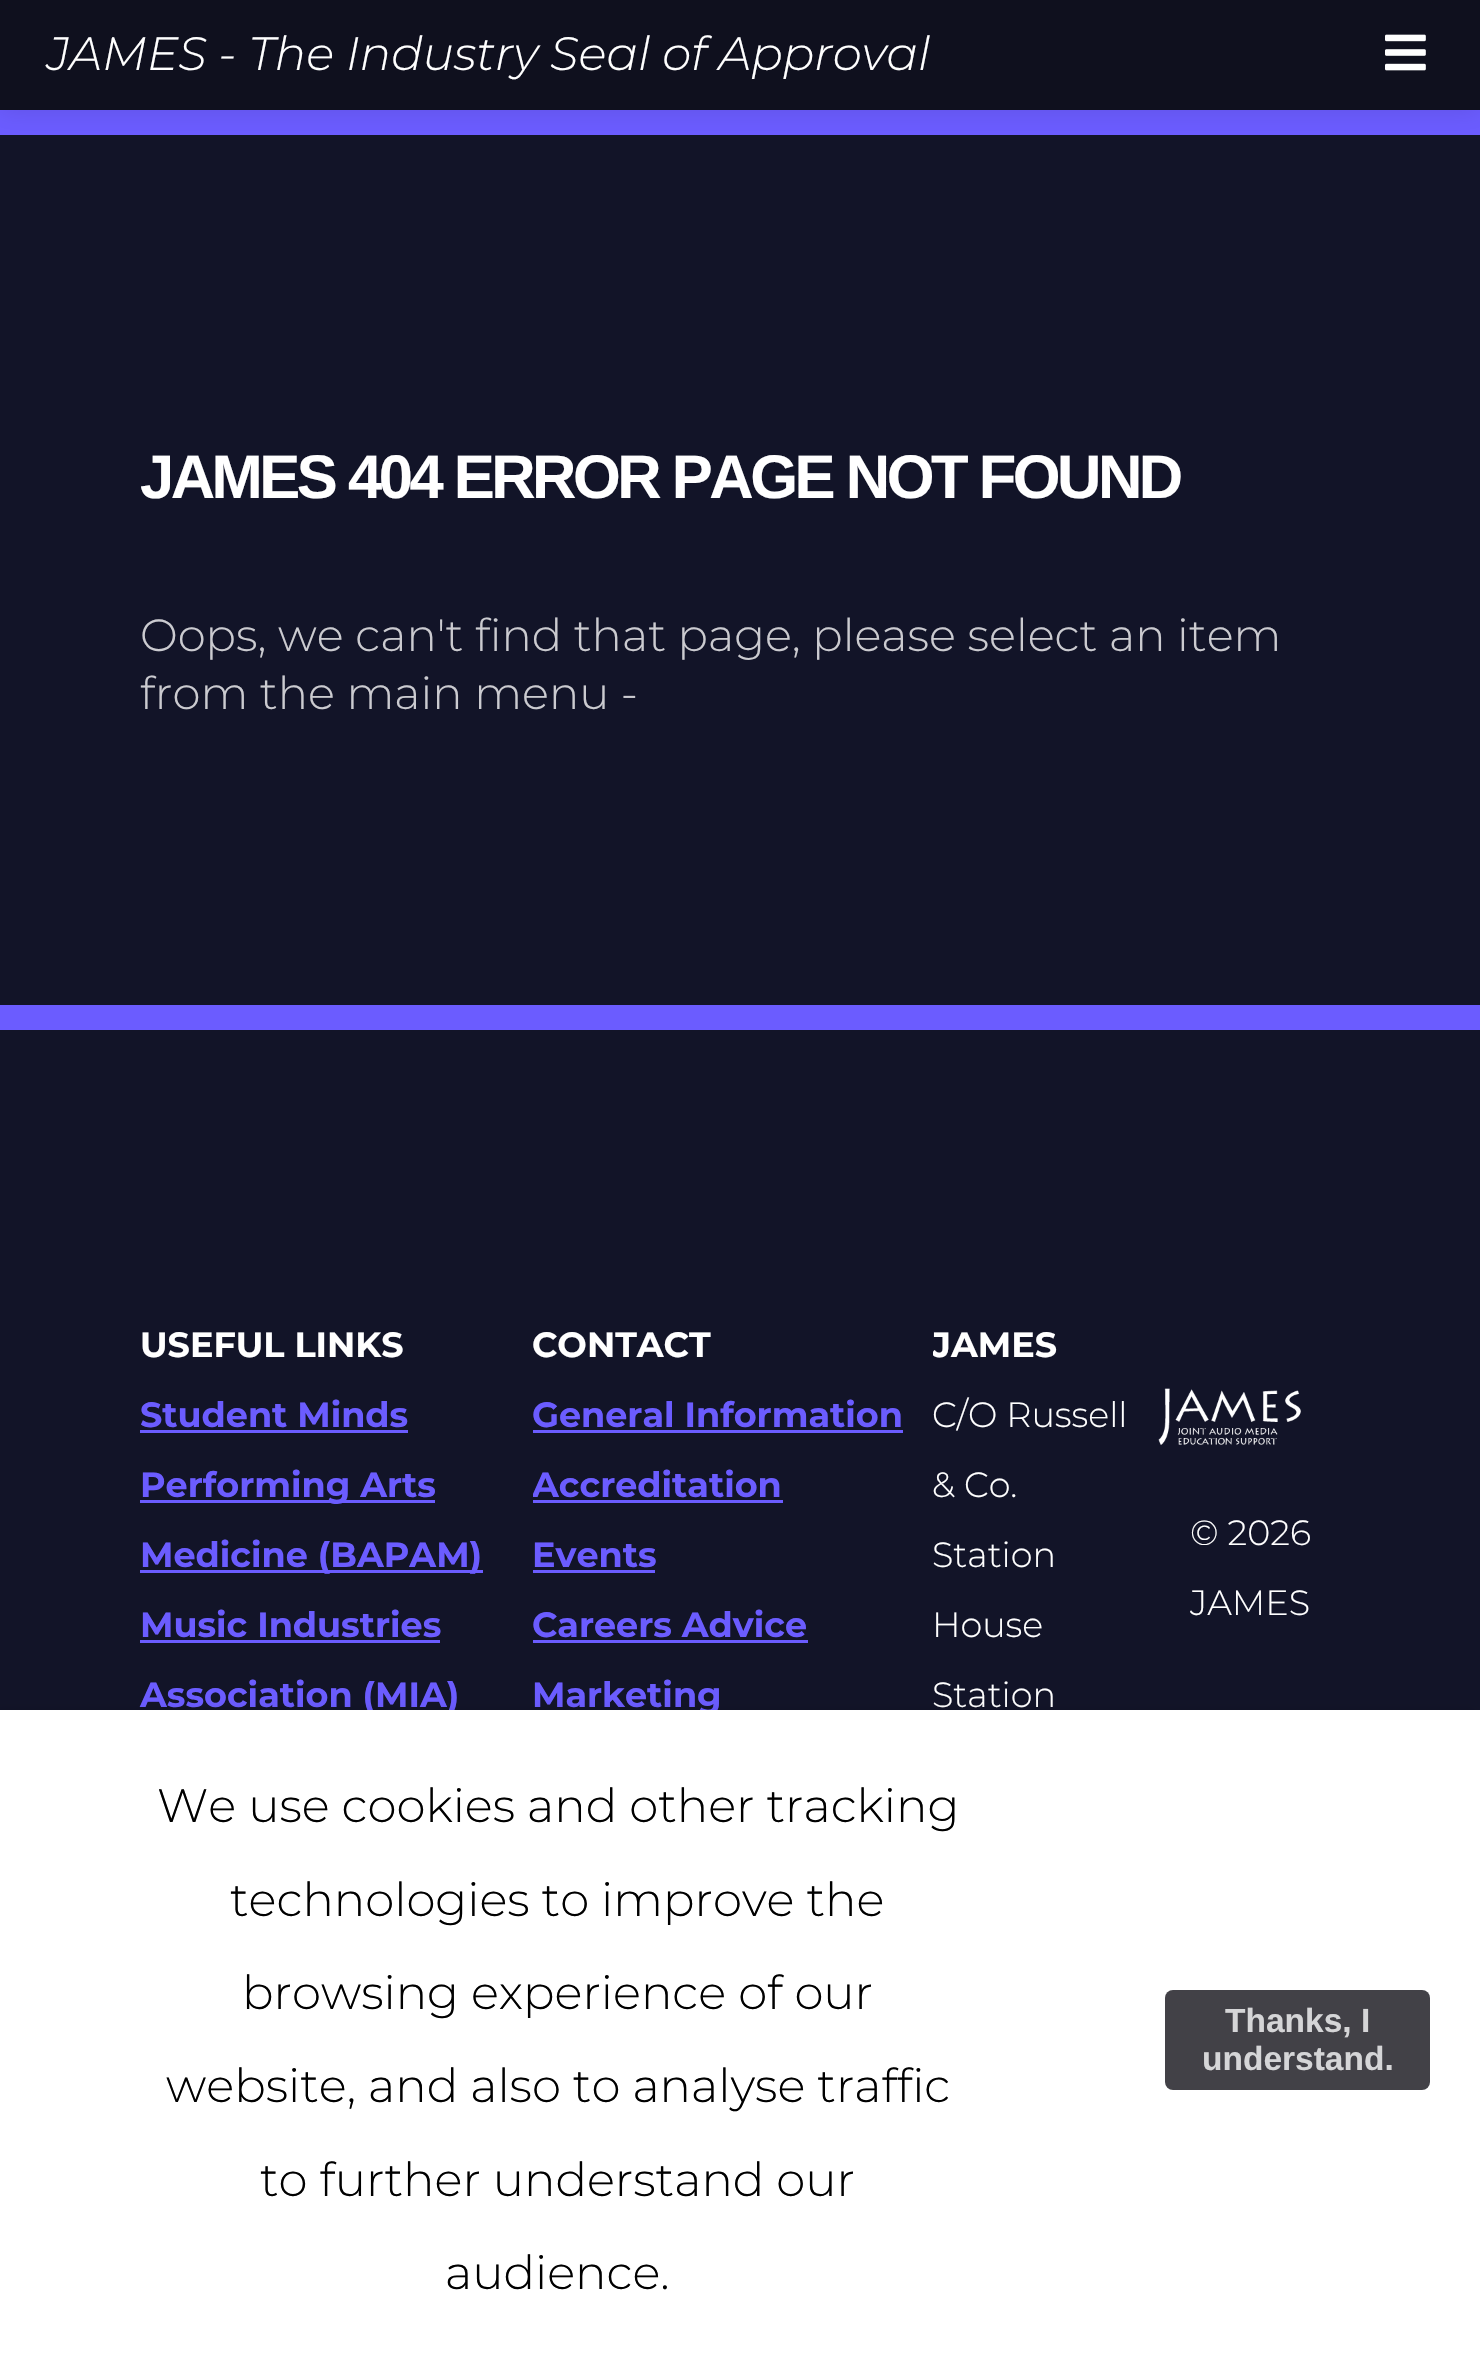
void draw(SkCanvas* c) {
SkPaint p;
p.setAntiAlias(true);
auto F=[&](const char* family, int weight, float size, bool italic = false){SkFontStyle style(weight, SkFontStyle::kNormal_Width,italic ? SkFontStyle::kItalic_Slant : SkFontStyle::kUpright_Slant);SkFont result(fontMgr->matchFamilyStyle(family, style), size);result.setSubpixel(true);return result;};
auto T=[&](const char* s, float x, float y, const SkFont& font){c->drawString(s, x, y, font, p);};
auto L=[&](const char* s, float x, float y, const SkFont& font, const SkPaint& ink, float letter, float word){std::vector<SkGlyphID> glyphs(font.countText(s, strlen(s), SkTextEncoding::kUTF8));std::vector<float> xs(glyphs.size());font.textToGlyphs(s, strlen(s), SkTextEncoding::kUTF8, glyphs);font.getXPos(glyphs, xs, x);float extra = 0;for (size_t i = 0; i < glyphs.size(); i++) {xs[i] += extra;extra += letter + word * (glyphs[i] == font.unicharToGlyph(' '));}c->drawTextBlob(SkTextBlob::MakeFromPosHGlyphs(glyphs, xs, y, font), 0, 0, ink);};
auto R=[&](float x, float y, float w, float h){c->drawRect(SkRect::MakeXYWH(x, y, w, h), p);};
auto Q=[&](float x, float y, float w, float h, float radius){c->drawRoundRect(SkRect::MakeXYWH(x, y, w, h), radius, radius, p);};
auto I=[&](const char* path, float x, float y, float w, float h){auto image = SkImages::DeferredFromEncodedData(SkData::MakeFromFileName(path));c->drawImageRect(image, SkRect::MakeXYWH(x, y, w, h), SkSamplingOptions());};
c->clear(0xff121428);
p.setColor(0xff6b5cff);
R(0,110,1480,25);
p.setColor(0x1c000000);
p.setMaskFilter(SkMaskFilter::MakeBlur(kNormal_SkBlurStyle, 11.5));
c->drawRect(SkRect::MakeXYWH(0,0,1480,110),p);
p.setMaskFilter(nullptr);
p.setColor(0xff0f101e);
R(0,0,1480,110);
auto f1 = F("Montserrat",300,46.7,true);
p.setColor(0xffffffff);
T("JAMES - The Industry Seal of Approval",47,70,f1);
I("1.png",1385,34,41,37);
auto f2 = F("Liberation Sans",700,61.5);
L("JAMES 404 ERROR PAGE NOT FOUND",140,498,f2,p,-3.5,0);
auto f3 = F("Montserrat",300,45);
p.setColor(0xffcbcbd0);
T("Oops, we can't find that page, please select an item",140,651,f3);
T("from the main menu -",140,709,f3);
p.setColor(0xff6b5cff);
R(0,1005,1480,25);
auto f4 = F("Montserrat",700,35);
p.setColor(0xffffffff);
T("USEFUL LINKS",140,1357,f4);
p.setColor(0xff6b5cff);
T("Student Minds",140,1427,f4);
R(140,1430,268,3);
R(140,1500,295,3);
T("Performing Arts",140,1497,f4);
R(140,1570,343,3);
T("Medicine (BAPAM)",140,1567,f4);
T("Music Industries",140,1637,f4);
R(140,1640,300,3);
T("Association (MIA)",140,1707,f4);
p.setColor(0xffffffff);
T("CONTACT",532,1357,f4);
p.setColor(0xff6b5cff);
T("General Information",532,1427,f4);
R(533,1430,370,3);
c->save();
c->clipRect(SkRect::MakeXYWH(533,1310,375,910));
T("Accreditation",532,1497,f4);
c->restore();
R(533,1500,250,3);
T("Events",532,1567,f4);
R(533,1570,122,3);
T("Careers Advice",532,1637,f4);
R(533,1640,275,3);
T("Marketing",532,1707,f4);
c->save();
c->clipRect(SkRect::MakeXYWH(933,1310,200,770));
p.setColor(0xffffffff);
T("JAMES",932,1357,f4);
c->restore();
auto f5 = F("Montserrat",300,35);
T("C/O Russell",932,1427,f5);
T("& Co.",932,1497,f5);
T("Station",932,1567,f5);
T("House",932,1637,f5);
T("Station",932,1707,f5);
I("2.png",1158,1388,143,57);
T("© 2026",1190,1545,f5);
T("JAMES",1190,1615,f5);
p.setColor(0x1a000000);
p.setMaskFilter(SkMaskFilter::MakeBlur(kNormal_SkBlurStyle, 5));
c->drawRect(SkRect::MakeXYWH(-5,1710,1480,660),p);
p.setMaskFilter(nullptr);
p.setColor(0xffffffff);
R(0,1710,1480,659);
auto f6 = F("Montserrat",300,46.7);
p.setColor(0xff000000);
T("We use cookies and other tracking",157,1822,f6);
T("technologies to improve the",230,1916,f6);
T("browsing experience of our",242,2009,f6);
T("website, and also to analyse traffic",166,2102,f6);
T("to further understand our",260,2196,f6);
T("audience.",445,2289,f6);
p.setColor(0xff424147);
Q(1165,1990,265,100,8);
auto f7 = F("Liberation Sans",700,33.5);
p.setColor(0xffd5d5d7);
T("Thanks, I",1225,2032,f7);
T("understand.",1202,2070,f7);
}
